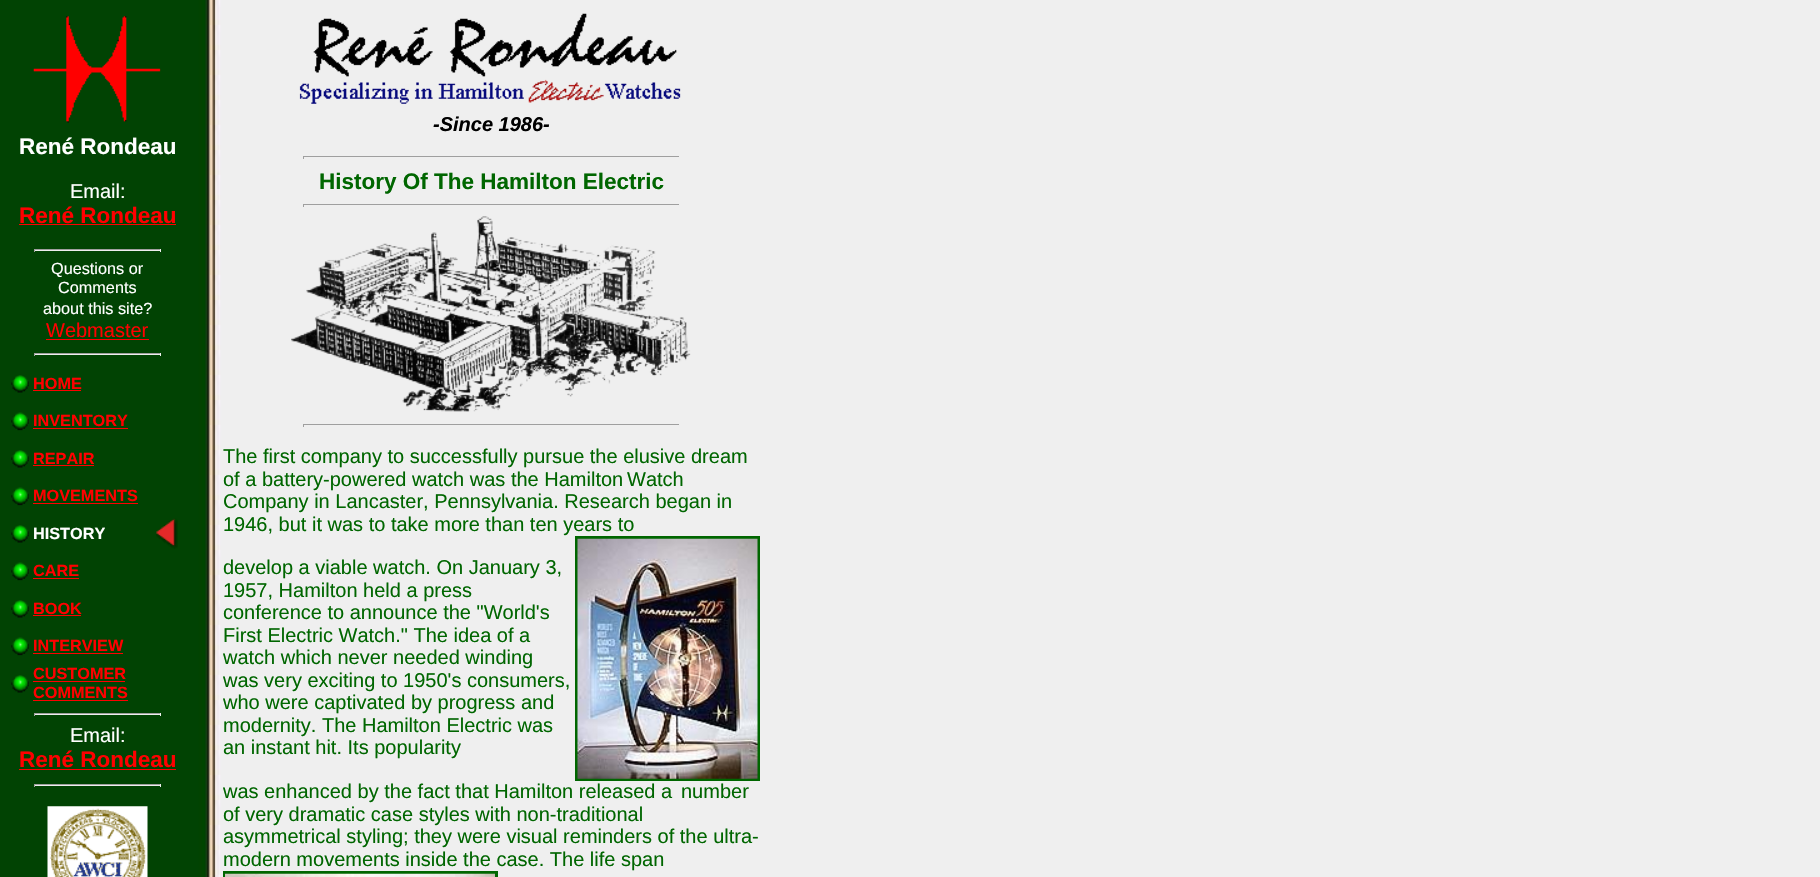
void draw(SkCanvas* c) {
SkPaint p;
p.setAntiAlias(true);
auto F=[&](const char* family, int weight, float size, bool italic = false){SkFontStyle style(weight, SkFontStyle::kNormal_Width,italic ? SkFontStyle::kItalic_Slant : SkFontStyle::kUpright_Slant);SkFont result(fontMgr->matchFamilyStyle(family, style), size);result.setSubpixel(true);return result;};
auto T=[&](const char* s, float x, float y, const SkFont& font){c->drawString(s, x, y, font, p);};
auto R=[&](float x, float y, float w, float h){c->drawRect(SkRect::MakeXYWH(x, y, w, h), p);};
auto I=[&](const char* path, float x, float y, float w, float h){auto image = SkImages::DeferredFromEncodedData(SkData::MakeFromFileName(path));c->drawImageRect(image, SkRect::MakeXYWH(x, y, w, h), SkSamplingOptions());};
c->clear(0xffffffff);
I("1.png",0,0,1820,877);
I("2.png",33,16,128,107);
auto f1 = F("Liberation Sans",700,22.5);
p.setColor(0xffffffff);
T("René Rondeau",19,154,f1);
auto f2 = F("Liberation Sans",400,20);
T("Email:",70,198,f2);
p.setColor(0xffff0000);
T("René Rondeau",19,223,f1);
R(19,224,157,1);
p.setColor(0xff9f9f9f);
R(34,249,127,1);
p.setColor(0xffeeeeee);
R(160,249,1,3);
R(34,250,127,1);
p.setColor(0xff9f9f9f);
R(34,249,1,3);
auto f3 = F("Liberation Sans",400,16.25);
p.setColor(0xffffffff);
T("Questions or",51,274,f3);
T("Comments",58,293,f3);
T("about this site?",43,314,f3);
p.setColor(0xffff0000);
T("Webmaster",46,337,f2);
R(46,339,103,1);
p.setColor(0xff9f9f9f);
R(34,353,127,1);
p.setColor(0xffeeeeee);
R(160,353,1,3);
R(34,354,127,1);
p.setColor(0xff9f9f9f);
R(34,353,1,3);
I("3.png",11,375,18,18);
auto f4 = F("Liberation Sans",700,16.25);
p.setColor(0xffff0000);
T("HOME",33,389,f4);
R(33,390,48,1);
I("4.png",11,412,18,19);
T("INVENTORY",33,426,f4);
R(33,428,95,1);
I("3.png",11,450,18,18);
T("REPAIR",33,464,f4);
R(33,465,61,1);
I("4.png",11,487,18,19);
T("MOVEMENTS",33,501,f4);
R(33,503,105,1);
I("3.png",11,525,18,18);
p.setColor(0xffffffff);
T("HISTORY",33,539,f4);
I("5.png",156,518,22,31);
I("4.png",11,562,18,19);
p.setColor(0xffff0000);
T("CARE",33,576,f4);
R(33,578,46,1);
I("3.png",11,600,18,18);
T("BOOK",33,614,f4);
R(33,615,48,1);
I("4.png",11,637,18,19);
T("INTERVIEW",33,651,f4);
R(33,653,90,1);
I("3.png",11,675,18,18);
T("CUSTOMER",33,679,f4);
R(33,681,92,1);
T("COMMENTS",33,698,f4);
R(33,700,95,1);
p.setColor(0xff9f9f9f);
R(34,713,127,1);
p.setColor(0xffeeeeee);
R(160,713,1,3);
R(34,714,127,1);
p.setColor(0xff9f9f9f);
R(34,713,1,3);
p.setColor(0xffffffff);
T("Email:",70,742,f2);
p.setColor(0xffff0000);
T("René Rondeau",19,767,f1);
R(19,769,157,1);
p.setColor(0xff9f9f9f);
R(34,784,127,1);
p.setColor(0xffeeeeee);
R(160,784,1,3);
R(34,785,127,1);
p.setColor(0xff9f9f9f);
R(34,784,1,3);
I("6.png",47,806,101,71);
I("7.png",299,13,382,91);
auto f5 = F("Liberation Sans",700,20,true);
p.setColor(0xff000000);
T("-Since 1986-",433,131,f5);
p.setColor(0xff9f9f9f);
R(303,156,377,1);
p.setColor(0xffeeeeee);
R(679,156,1,3);
p.setColor(0xff9f9f9f);
R(303,156,1,3);
p.setColor(0xff006600);
T("History Of The Hamilton Electric",319,189,f1);
p.setColor(0xff9f9f9f);
R(303,204,377,1);
p.setColor(0xffeeeeee);
R(679,204,1,3);
p.setColor(0xff9f9f9f);
R(303,204,1,3);
I("8.png",291,216,400,196);
R(303,424,377,1);
p.setColor(0xffeeeeee);
R(679,424,1,3);
p.setColor(0xff9f9f9f);
R(303,424,1,3);
p.setColor(0xff006600);
T("The first company to successfully pursue the elusive dream",223,463,f2);
T("of a battery-powered watch was the Hamilton",223,486,f2);
T("Watch",627,486,f2);
T("Company in Lancaster, Pennsylvania. Research began in",223,508,f2);
T("1946, but it was to take more than ten years to",223,531,f2);
T("develop a viable watch. On January 3,",223,574,f2);
T("1957, Hamilton held a press",223,597,f2);
T("conference to announce the \"World's",223,619,f2);
T("First Electric Watch.\" The idea of a",223,642,f2);
T("watch which never needed winding",223,664,f2);
T("was very exciting to 1950's consumers,",223,687,f2);
T("who were captivated by progress and",223,709,f2);
T("modernity. The Hamilton Electric was",223,732,f2);
T("an instant hit. Its popularity",223,754,f2);
p.setStroke(true);
p.setStrokeWidth(3);
c->drawRect(SkRect::MakeXYWH(576.5,537.5,182,242),p);
I("9.png",577,538,181,241);
p.setStroke(false);
T("was enhanced by the fact that Hamilton released a",223,798,f2);
T("number",681,798,f2);
T("of very dramatic case styles with non-traditional",223,821,f2);
T("asymmetrical styling; they were visual reminders of the ultra-",223,843,f2);
T("modern movements inside the case. The life span",223,866,f2);
p.setStroke(true);
c->drawRect(SkRect::MakeXYWH(224.5,872.5,272,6),p);
I("10.png",225,873,270,4);
}
